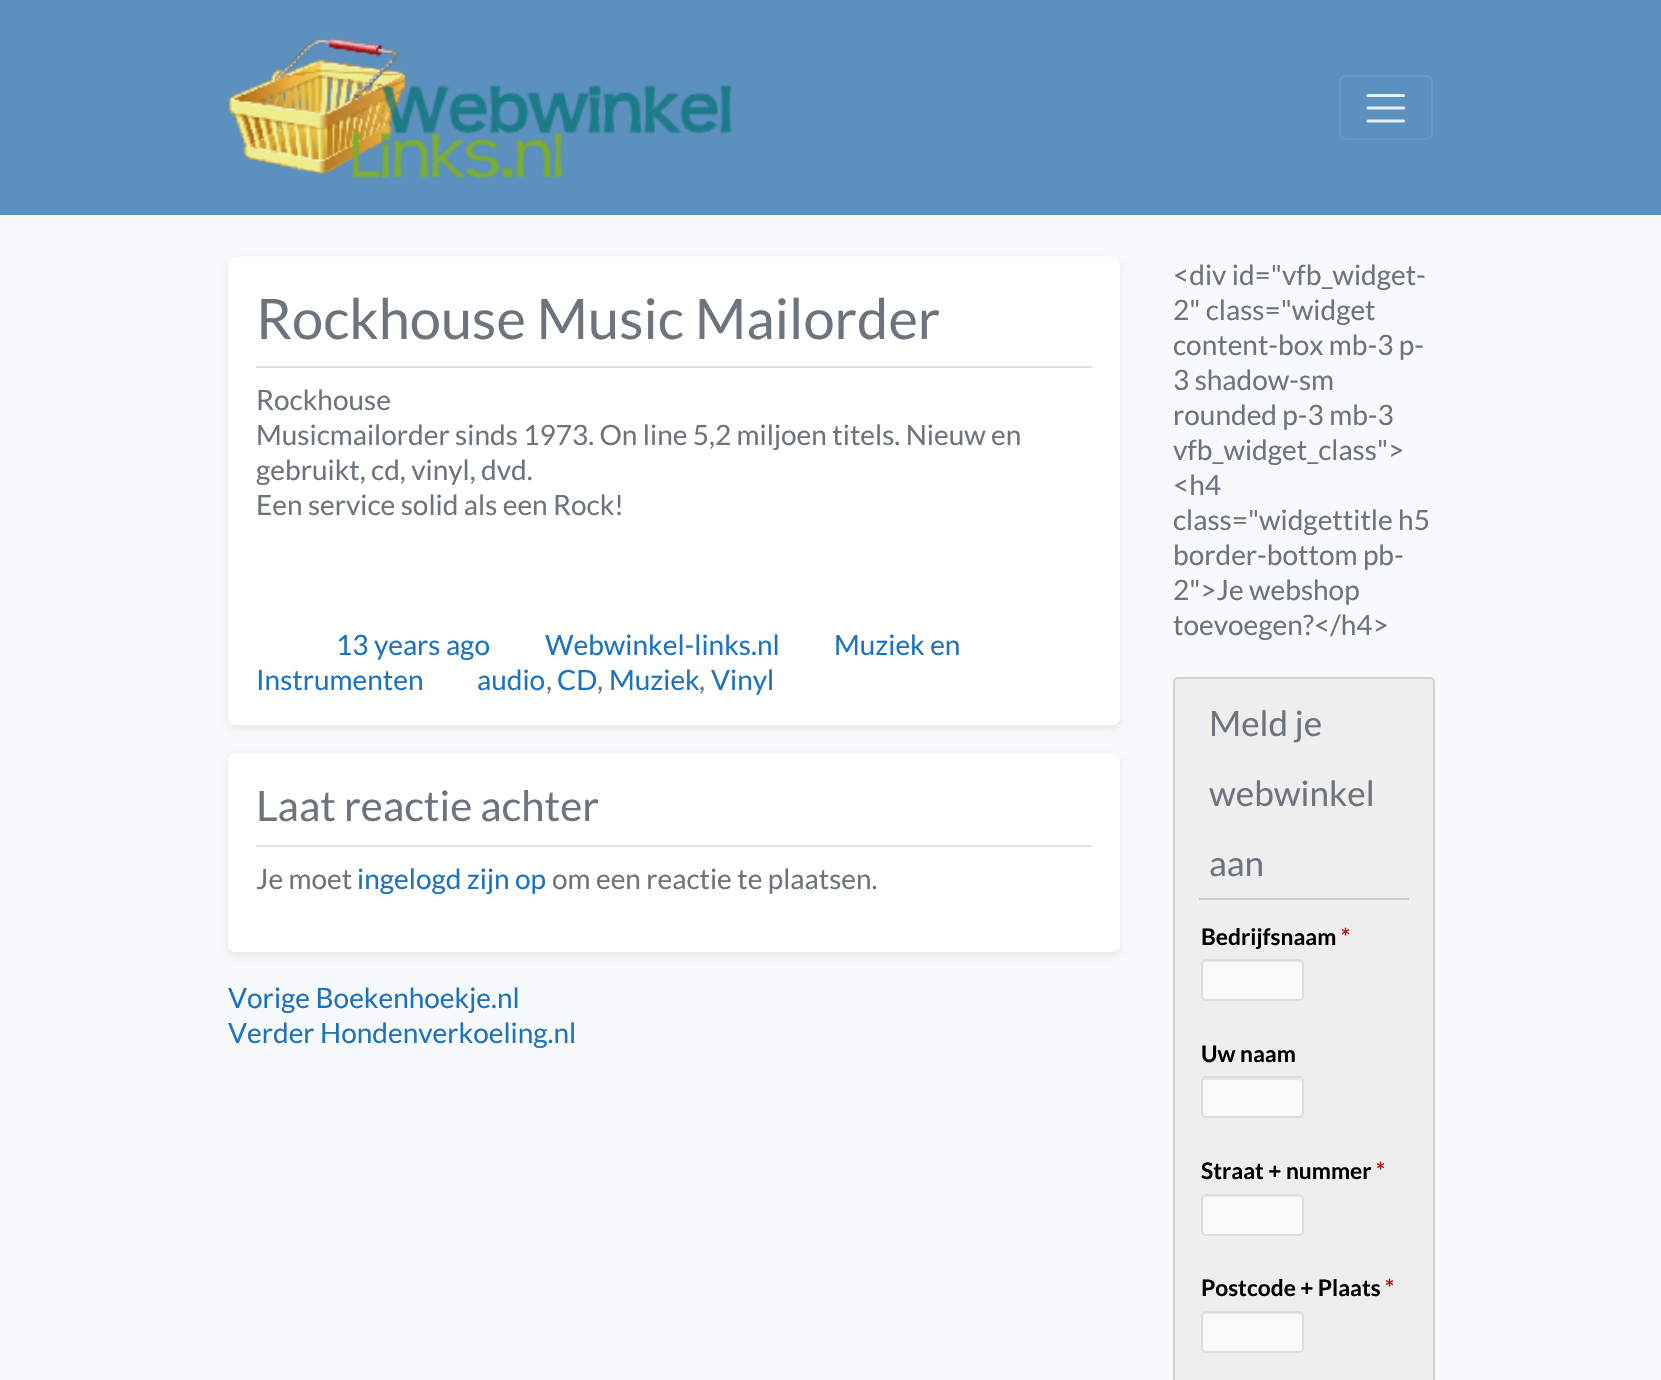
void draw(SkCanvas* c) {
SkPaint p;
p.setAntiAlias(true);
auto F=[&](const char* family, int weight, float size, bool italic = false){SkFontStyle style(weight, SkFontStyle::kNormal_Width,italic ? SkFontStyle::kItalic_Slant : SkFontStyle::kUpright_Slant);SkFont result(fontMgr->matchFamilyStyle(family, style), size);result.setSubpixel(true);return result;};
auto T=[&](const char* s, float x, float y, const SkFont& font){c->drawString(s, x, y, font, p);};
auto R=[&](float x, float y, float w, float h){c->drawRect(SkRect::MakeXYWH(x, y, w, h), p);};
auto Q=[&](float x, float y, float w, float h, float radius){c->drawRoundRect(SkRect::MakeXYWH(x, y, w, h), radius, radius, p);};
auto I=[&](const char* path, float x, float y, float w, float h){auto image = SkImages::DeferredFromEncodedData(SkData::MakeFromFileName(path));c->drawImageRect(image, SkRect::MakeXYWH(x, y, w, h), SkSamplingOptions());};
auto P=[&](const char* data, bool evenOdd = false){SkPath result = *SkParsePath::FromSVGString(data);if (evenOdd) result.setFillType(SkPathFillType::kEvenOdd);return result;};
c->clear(0xfff8f9fa);
p.setColor(0xff5b90bf);
R(0,0,1661,215);
I("1.png",229,38,503,141);
p.setStroke(true);
p.setStrokeWidth(2);
p.setColor(0xff6b9bc5);
c->drawRoundRect(SkRect::MakeXYWH(1340,76,92,63),6,6,p);
p.setStrokeWidth(3.2);
p.setStrokeCap(SkPaint::kRound_Cap);
p.setColor(0xffe6eef5);
c->drawPath(P("M1368 95.5h35.5m-35.5 12.5h35.5m-35.5 13h35.5"),p);
p.setStroke(false);
p.setColor(0x12000000);
p.setMaskFilter(SkMaskFilter::MakeBlur(kNormal_SkBlurStyle, 3.5));
c->drawRoundRect(SkRect::MakeXYWH(228,261,892,467),7,7,p);
p.setMaskFilter(nullptr);
p.setColor(0xffffffff);
Q(228,257,892,468,7);
p.setColor(0xffdee2e6);
R(256,366,836,2);
auto f1 = F("Lato",400,56);
p.setColor(0xff6c757d);
T("Rockhouse Music Mailorder",256,339,f1);
auto f2 = F("Lato",400,28);
T("Rockhouse",256,410,f2);
T("Musicmailorder sinds 1973. On line 5,2 miljoen titels. Nieuw en",256,445,f2);
T("gebruikt, cd, vinyl, dvd.",256,480,f2);
T("Een service solid als een Rock!",256,515,f2);
p.setColor(0xff1e73be);
T("13 years ago",336,655,f2);
T("Webwinkel-links.nl",545,655,f2);
T("Muziek en",834,655,f2);
T("Instrumenten",256,690,f2);
T("audio",477,690,f2);
p.setColor(0xff6c757d);
T(",",546,690,f2);
p.setColor(0xff1e73be);
T("CD",557,690,f2);
p.setColor(0xff6c757d);
T(",",597,690,f2);
p.setColor(0xff1e73be);
T("Muziek",609,690,f2);
p.setColor(0xff6c757d);
T(",",699,690,f2);
p.setColor(0xff1e73be);
T("Vinyl",711,690,f2);
p.setColor(0x12000000);
p.setMaskFilter(SkMaskFilter::MakeBlur(kNormal_SkBlurStyle, 3.5));
c->drawRoundRect(SkRect::MakeXYWH(228,756,892,200),7,7,p);
p.setMaskFilter(nullptr);
p.setColor(0xffffffff);
Q(228,753,892,199,7);
p.setColor(0xffdee2e6);
R(256,845,836,2);
auto f3 = F("Lato",400,42);
p.setColor(0xff6c757d);
T("Laat reactie achter",256,821,f3);
T("Je moet",256,889,f2);
p.setColor(0xff1e73be);
T("ingelogd zijn op",357,889,f2);
p.setColor(0xff6c757d);
T("om een reactie te plaatsen.",552,889,f2);
p.setColor(0xff1e73be);
T("Vorige Boekenhoekje.nl",228,1008,f2);
T("Verder Hondenverkoeling.nl",228,1043,f2);
p.setColor(0xff6c757d);
T("<div id=\"vfb_widget-",1173,285,f2);
T("2\" class=\"widget",1173,320,f2);
T("content-box mb-3 p-",1173,355,f2);
T("3 shadow-sm",1173,390,f2);
T("rounded p-3 mb-3",1173,425,f2);
T("vfb_widget_class\">",1173,460,f2);
T("<h4",1173,495,f2);
T("class=\"widgettitle h5",1173,530,f2);
T("border-bottom pb-",1173,565,f2);
T("2\">Je webshop",1173,600,f2);
T("toevoegen?</h4>",1173,635,f2);
p.setColor(0xffeeeeee);
c->drawRoundRect(SkRect::MakeXYWH(1174,678,260,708),4,4,p);
p.setStroke(true);
p.setStrokeWidth(2);
p.setStrokeCap(SkPaint::kButt_Cap);
p.setColor(0xffd3d3d3);
c->drawRoundRect(SkRect::MakeXYWH(1174,678,260,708),4,4,p);
p.setStroke(false);
p.setColor(0xffcccccc);
R(1199,898,210,2);
auto f4 = F("Lato",400,35);
p.setColor(0xff6c757d);
T("Meld je",1209,736,f4);
T("webwinkel",1209,806,f4);
T("aan",1209,876,f4);
auto f5 = F("Lato",700,22.75);
p.setColor(0xff000000);
T("Bedrijfsnaam",1201,945,f5);
p.setColor(0xffbc1212);
T("*",1341,945,f5);
p.setColor(0xfffafafa);
Q(1201,959,103,42,5);
p.setColor(0xffe7e7e7);
c->drawPath(P("M1206 962h92c2 0 4 2 4 4c0-9-15-5-19-5h-62c-4 0-19-4-19 5c0-2 2-4 4-4z"),p);
p.setStroke(true);
p.setColor(0xffdddddd);
c->drawRoundRect(SkRect::MakeXYWH(1202,960,101,40),4,4,p);
p.setStroke(false);
p.setColor(0xff000000);
T("Uw naam",1201,1062,f5);
p.setColor(0xfffafafa);
Q(1201,1076,103,42,5);
p.setColor(0xffe7e7e7);
c->drawPath(P("M1206 1080h92c2 0 4 1 4 3c0-9-15-5-19-5h-62c-4 0-19-4-19 5c0-2 2-3 4-3z"),p);
p.setStroke(true);
p.setColor(0xffdddddd);
c->drawRoundRect(SkRect::MakeXYWH(1202,1077,101,40),4,4,p);
p.setStroke(false);
p.setColor(0xff000000);
T("Straat + nummer",1201,1179,f5);
p.setColor(0xffbc1212);
T("*",1376,1179,f5);
p.setColor(0xfffafafa);
Q(1201,1194,103,42,5);
p.setColor(0xffe7e7e7);
c->drawPath(P("M1206 1197h92c2 0 4 2 4 3c0-9-15-5-19-5h-62c-4 0-19-4-19 5c0-1 2-3 4-3z"),p);
p.setStroke(true);
p.setColor(0xffdddddd);
c->drawRoundRect(SkRect::MakeXYWH(1202,1195,101,40),4,4,p);
p.setStroke(false);
p.setColor(0xff000000);
T("Postcode + Plaats",1201,1296,f5);
p.setColor(0xffbc1212);
T("*",1385,1296,f5);
p.setColor(0xfffafafa);
Q(1201,1311,103,42,5);
p.setColor(0xffe7e7e7);
c->drawPath(P("M1206 1314h92c2 0 4 2 4 4c0-9-15-5-19-5h-62c-4 0-19-4-19 5c0-2 2-4 4-4z"),p);
p.setStroke(true);
p.setColor(0xffdddddd);
c->drawRoundRect(SkRect::MakeXYWH(1202,1312,101,40),4,4,p);
}
